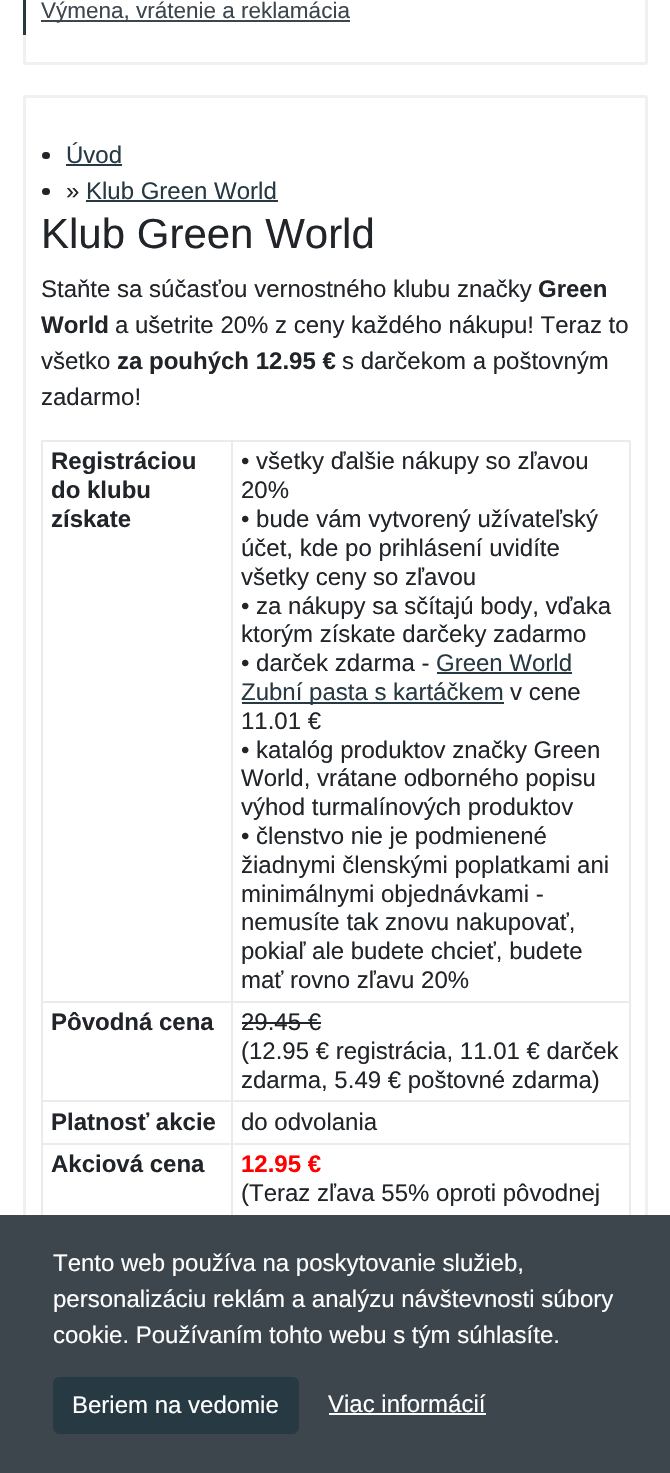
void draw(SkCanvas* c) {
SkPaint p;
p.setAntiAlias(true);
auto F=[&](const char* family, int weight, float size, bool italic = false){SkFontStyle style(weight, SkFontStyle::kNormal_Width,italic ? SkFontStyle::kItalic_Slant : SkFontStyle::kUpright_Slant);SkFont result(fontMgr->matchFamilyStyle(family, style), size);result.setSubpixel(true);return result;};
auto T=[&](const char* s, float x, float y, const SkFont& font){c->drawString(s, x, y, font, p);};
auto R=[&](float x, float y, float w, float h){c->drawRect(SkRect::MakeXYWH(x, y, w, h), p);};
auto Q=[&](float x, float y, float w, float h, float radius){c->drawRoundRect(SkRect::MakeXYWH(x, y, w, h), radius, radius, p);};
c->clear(0xffffffff);
p.setStroke(true);
p.setStrokeWidth(3);
p.setColor(0xfff0f0f0);
c->drawRoundRect(SkRect::MakeXYWH(24.5,-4.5,622,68),1.5,1.5,p);
p.setStroke(false);
p.setColor(0xff273942);
R(23,0,3,35);
p.setColor(0xff3d464d);
R(41,20,309,2);
auto f1 = F("Liberation Sans",400,22.5);
T("Výmena, vrátenie a reklamácia",41,18,f1);
p.setStroke(true);
p.setColor(0xfff0f0f0);
c->drawRoundRect(SkRect::MakeXYWH(24.5,96.5,622,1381),1.5,1.5,p);
p.setStroke(false);
p.setColor(0xff212529);
Q(42,152,8,7,3.5);
auto f2 = F("Liberation Sans",400,24);
p.setColor(0xff273942);
T("Úvod",66,163,f2);
R(66,164,56,2);
p.setColor(0xff212529);
Q(42,188,8,7,3.5);
T("»",66,199,f2);
p.setColor(0xff273942);
T("Klub Green World",86,199,f2);
R(86,200,192,2);
auto f3 = F("Liberation Sans",400,42);
p.setColor(0xff212529);
T("Klub Green World",41,248,f3);
T("Staňte sa súčasťou vernostného klubu značky",41,297,f2);
auto f4 = F("Liberation Sans",700,24);
T("Green",538,297,f4);
T("World",41,333,f4);
T("a ušetrite 20% z ceny každého nákupu! Teraz to",115,333,f2);
T("všetko",41,369,f2);
T("za pouhých 12.95 €",117,369,f4);
T("s darčekom a poštovným",342,369,f2);
T("zadarmo!",41,405,f2);
p.setColor(0xffebebeb);
R(41,440,589,2);
R(41,440,2,775);
R(231,441,2,561);
R(42,1001,191,2);
p.setColor(0xff212529);
T("Registráciou",51,469,f4);
T("do klubu",51,498,f4);
T("získate",51,527,f4);
p.setColor(0xffebebeb);
R(629,441,2,561);
R(233,1001,397,2);
p.setColor(0xff212529);
T("• všetky ďalšie nákupy so zľavou",241,469,f2);
T("20%",241,498,f2);
T("• bude vám vytvorený užívateľský",241,527,f2);
T("účet, kde po prihlásení uvidíte",241,556,f2);
T("všetky ceny so zľavou",241,585,f2);
T("• za nákupy sa sčítajú body, vďaka",241,614,f2);
T("ktorým získate darčeky zadarmo",241,642,f2);
T("• darček zdarma -",241,671,f2);
p.setColor(0xff273942);
T("Green World",436,671,f2);
R(437,672,135,2);
R(242,702,262,2);
T("Zubní pasta s kartáčkem",241,700,f2);
p.setColor(0xff212529);
T("v cene",510,700,f2);
T("11.01 €",241,729,f2);
T("• katalóg produktov značky Green",241,758,f2);
T("World, vrátane odborného popisu",241,786,f2);
T("výhod turmalínových produktov",241,815,f2);
T("• členstvo nie je podmienené",241,844,f2);
T("žiadnymi členskými poplatkami ani",241,873,f2);
T("minimálnymi objednávkami -",241,902,f2);
T("nemusíte tak znovu nakupovať,",241,930,f2);
T("pokiaľ ale budete chcieť, budete",241,959,f2);
T("mať rovno zľavu 20%",241,988,f2);
p.setColor(0xffebebeb);
R(231,1002,2,99);
R(42,1100,191,2);
p.setColor(0xff212529);
T("Pôvodná cena",51,1030,f4);
p.setColor(0xffebebeb);
R(629,1002,2,99);
R(233,1100,397,2);
p.setColor(0xff212529);
T("29.45 €",241,1030,f2);
R(242,1022,79,2);
T("(12.95 € registrácia, 11.01 € darček",241,1059,f2);
T("zdarma, 5.49 € poštovné zdarma)",241,1088,f2);
p.setColor(0xffebebeb);
R(231,1101,2,114);
R(42,1143,191,2);
p.setColor(0xff212529);
T("Platnosť akcie",51,1130,f4);
p.setColor(0xffebebeb);
R(629,1101,2,114);
R(233,1143,397,2);
p.setColor(0xff212529);
T("do odvolania",241,1130,f2);
T("Akciová cena",51,1172,f4);
p.setColor(0xffff0000);
T("12.95 €",241,1172,f4);
p.setColor(0xff212529);
T("(Teraz zľava 55% oproti pôvodnej",241,1201,f2);
p.setColor(0xff3d464d);
R(0,1215,670,258);
p.setColor(0xffffffff);
T("Tento web používa na poskytovanie služieb,",53,1271,f2);
T("personalizáciu reklám a analýzu návštevnosti súbory",53,1307,f2);
T("cookie. Používaním tohto webu s tým súhlasíte.",53,1343,f2);
p.setColor(0xff273942);
c->drawRoundRect(SkRect::MakeXYWH(54,1378,244,55),5,5,p);
p.setStroke(true);
p.setStrokeWidth(2);
c->drawRoundRect(SkRect::MakeXYWH(54,1378,244,55),5,5,p);
p.setStroke(false);
p.setColor(0xffffffff);
T("Beriem na vedomie",72,1413,f2);
T("Viac informácií",328,1412,f2);
R(329,1413,157,2);
}
